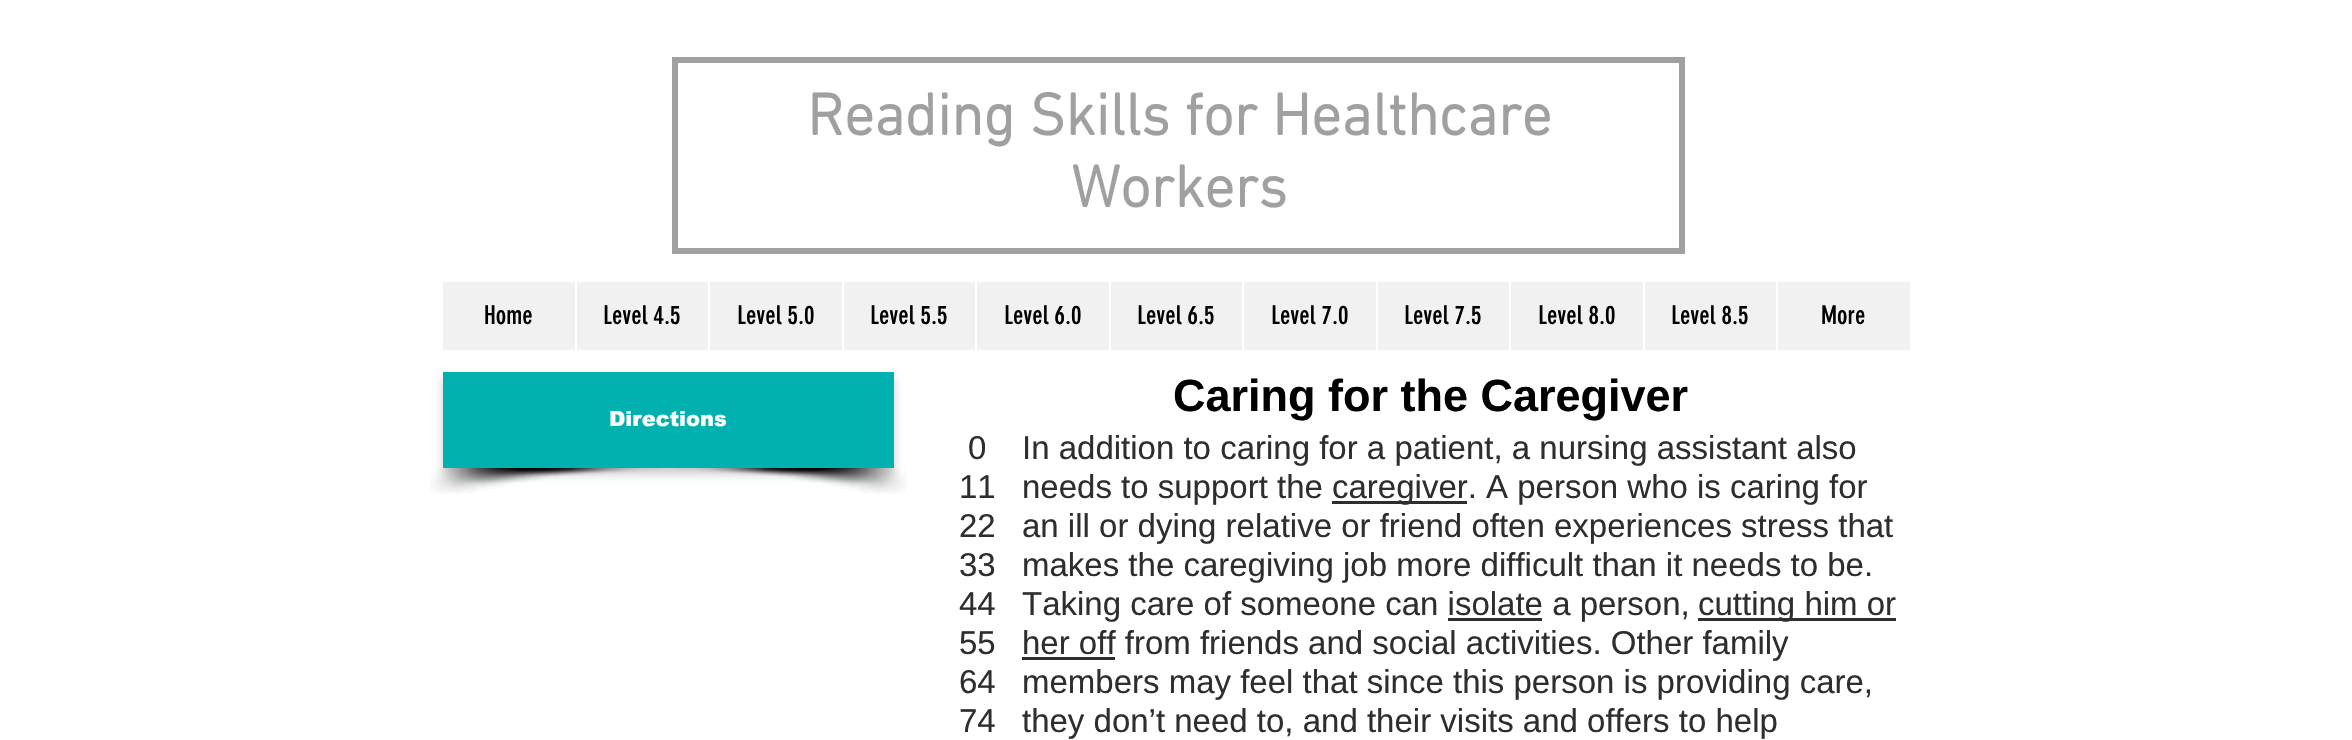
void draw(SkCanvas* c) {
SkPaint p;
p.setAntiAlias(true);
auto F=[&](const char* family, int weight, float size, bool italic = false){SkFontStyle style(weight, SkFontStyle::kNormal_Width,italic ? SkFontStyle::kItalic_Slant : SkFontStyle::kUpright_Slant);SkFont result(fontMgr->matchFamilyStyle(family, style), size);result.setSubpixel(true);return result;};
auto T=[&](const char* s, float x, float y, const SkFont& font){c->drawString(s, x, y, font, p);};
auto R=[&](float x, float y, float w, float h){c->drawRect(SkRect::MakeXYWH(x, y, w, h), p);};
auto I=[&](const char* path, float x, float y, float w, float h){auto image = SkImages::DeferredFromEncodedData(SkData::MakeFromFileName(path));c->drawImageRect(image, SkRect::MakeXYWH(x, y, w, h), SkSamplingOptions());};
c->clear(0xffffffff);
p.setStroke(true);
p.setStrokeWidth(6);
p.setColor(0xffa0a09f);
c->drawRect(SkRect::MakeXYWH(675,60,1007,191),p);
auto f1 = F("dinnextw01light",700,60);
p.setStroke(false);
T("Reading Skills for Healthcare",807,135,f1);
T("Workers",1071,207,f1);
p.setColor(0xfff1f1f1);
R(443,282,1467,68);
auto f2 = F("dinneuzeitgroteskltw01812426",400,25.5);
p.setColor(0xff000000);
T("Home",484,324,f2);
p.setColor(0xffffffff);
R(575,282,2,68);
p.setColor(0xff000000);
T("Level 4.5",603,324,f2);
p.setColor(0xffffffff);
R(708,282,2,68);
p.setColor(0xff000000);
T("Level 5.0",737,324,f2);
p.setColor(0xffffffff);
R(842,282,2,68);
p.setColor(0xff000000);
T("Level 5.5",870,324,f2);
p.setColor(0xffffffff);
R(975,282,2,68);
p.setColor(0xff000000);
T("Level 6.0",1004,324,f2);
p.setColor(0xffffffff);
R(1109,282,2,68);
p.setColor(0xff000000);
T("Level 6.5",1137,324,f2);
p.setColor(0xffffffff);
R(1242,282,2,68);
p.setColor(0xff000000);
T("Level 7.0",1271,324,f2);
p.setColor(0xffffffff);
R(1376,282,2,68);
p.setColor(0xff000000);
T("Level 7.5",1404,324,f2);
p.setColor(0xffffffff);
R(1509,282,2,68);
p.setColor(0xff000000);
T("Level 8.0",1538,324,f2);
p.setColor(0xffffffff);
R(1643,282,2,68);
p.setColor(0xff000000);
T("Level 8.5",1671,324,f2);
p.setColor(0xffffffff);
R(1776,282,2,68);
p.setColor(0xff000000);
T("More",1821,324,f2);
I("1.png",430,468,230,26);
I("2.png",677,468,230,26);
p.setColor(0x33000000);
p.setMaskFilter(SkMaskFilter::MakeBlur(kNormal_SkBlurStyle, 4.5));
c->drawRect(SkRect::MakeXYWH(443,378,451,96),p);
p.setMaskFilter(nullptr);
p.setColor(0xff01b1af);
R(443,372,451,96);
auto f3 = F("arial",900,21);
p.setColor(0xffffffff);
T("Directions",609,426,f3);
auto f4 = F("Liberation Sans",700,45);
p.setColor(0xff000000);
T("Caring for the Caregiver",1173,411,f4);
auto f5 = F("Liberation Sans",400,33);
p.setColor(0xff2f2e2e);
T("0",968,459,f5);
T("11",959,498,f5);
T("22",959,537,f5);
T("33",959,576,f5);
T("44",959,615,f5);
T("55",959,654,f5);
T("64",959,693,f5);
T("74",959,732,f5);
T("In addition to caring for a patient, a nursing assistant also",1022,459,f5);
T("needs to support the",1022,498,f5);
R(1332,501,135,3);
T("caregiver. A person who is caring for",1332,498,f5);
T("an ill or dying relative or friend often experiences stress that",1022,537,f5);
T("makes the caregiving job more difficult than it needs to be.",1022,576,f5);
T("Taking care of someone can isolate a person,",1022,615,f5);
R(1698,618,198,3);
T("cutting him or",1698,615,f5);
R(1448,618,94,3);
R(1022,657,93,3);
T("her off from friends and social activities. Other family",1022,654,f5);
T("members may feel that since this person is providing care,",1022,693,f5);
T("they don’t need to, and their visits and offers to help",1022,732,f5);
}
